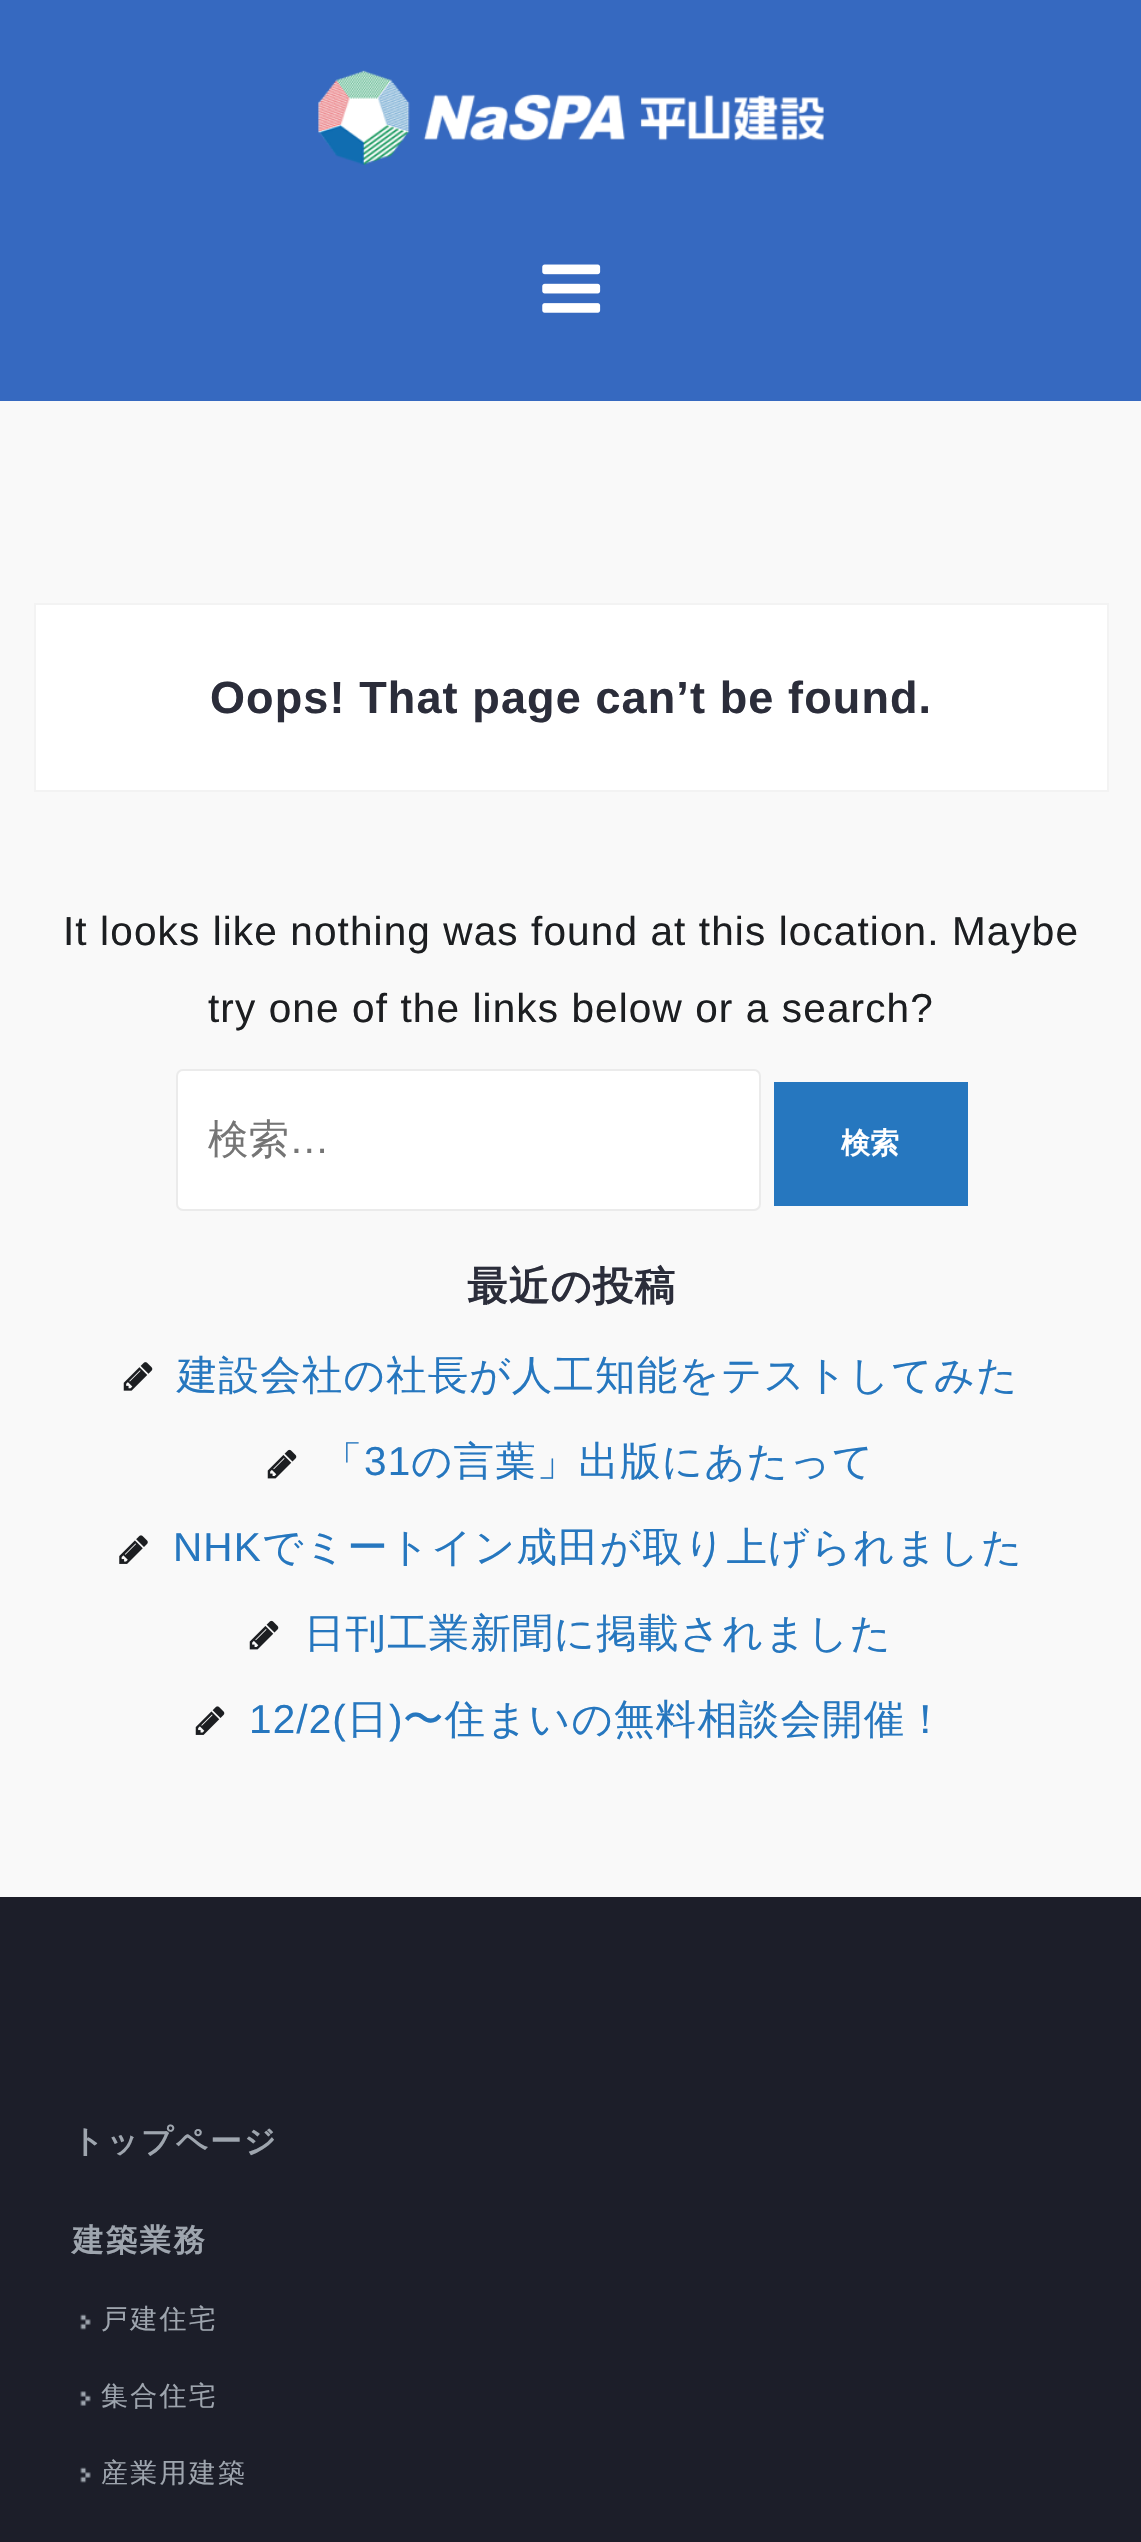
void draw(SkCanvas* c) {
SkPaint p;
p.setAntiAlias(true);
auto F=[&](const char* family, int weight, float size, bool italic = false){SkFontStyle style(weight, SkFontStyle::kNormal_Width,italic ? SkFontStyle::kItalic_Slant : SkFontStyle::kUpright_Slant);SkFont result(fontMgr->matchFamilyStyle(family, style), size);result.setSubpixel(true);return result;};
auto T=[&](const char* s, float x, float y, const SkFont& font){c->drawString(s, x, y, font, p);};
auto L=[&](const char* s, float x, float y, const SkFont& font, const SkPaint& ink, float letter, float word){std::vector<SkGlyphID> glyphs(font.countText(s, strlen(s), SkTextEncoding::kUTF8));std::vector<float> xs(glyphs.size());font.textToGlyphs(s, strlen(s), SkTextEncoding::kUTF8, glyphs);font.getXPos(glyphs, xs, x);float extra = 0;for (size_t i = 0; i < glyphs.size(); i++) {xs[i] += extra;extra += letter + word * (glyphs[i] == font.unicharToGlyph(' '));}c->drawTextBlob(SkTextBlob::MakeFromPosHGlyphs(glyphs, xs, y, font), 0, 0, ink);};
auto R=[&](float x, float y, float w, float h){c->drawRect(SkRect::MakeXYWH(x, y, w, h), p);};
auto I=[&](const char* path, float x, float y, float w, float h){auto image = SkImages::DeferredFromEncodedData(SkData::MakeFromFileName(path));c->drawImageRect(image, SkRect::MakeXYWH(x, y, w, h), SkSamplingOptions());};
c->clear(0xfff9f9f9);
p.setColor(0xff3669c0);
R(0,0,1141,401);
I("1.png",318,70,506,95);
I("2.png",542,264,59,49);
p.setColor(0xffffffff);
c->drawRect(SkRect::MakeXYWH(35,604,1073,187),p);
p.setStroke(true);
p.setStrokeWidth(2);
p.setColor(0xfff3f3f3);
c->drawRect(SkRect::MakeXYWH(35,604,1073,187),p);
auto f1 = F("Liberation Sans",700,45);
p.setStroke(false);
p.setColor(0xff2b2d3a);
L("Oops! That page can’t be found.",210,713,f1,p,1.12,0);
auto f2 = F("Liberation Sans",400,40.5);
p.setColor(0xff1c1e21);
L("It looks like nothing was found at this location. Maybe",63,945,f2,p,1.12,0);
L("try one of the links below or a search?",208,1022,f2,p,1.12,0);
p.setColor(0xffffffff);
c->drawRoundRect(SkRect::MakeXYWH(177,1070,583,140),6,6,p);
p.setStroke(true);
p.setColor(0xffebebeb);
c->drawRoundRect(SkRect::MakeXYWH(177,1070,583,140),6,6,p);
auto f3 = F("WenQuanYi Zen Hei",500,40.5);
p.setStroke(false);
p.setColor(0xff757575);
T("検索",208,1153,f3);
T("…",289,1153,f2);
p.setColor(0xff2677bf);
R(774,1082,194,124);
auto f4 = F("WenQuanYi Zen Hei",700,29);
p.setColor(0xffffffff);
T("検索",841,1153,f4);
auto f5 = F("WenQuanYi Zen Hei",700,40.5);
p.setColor(0xff2b2d3a);
L("最近の投稿",467,1300,f5,p,1.12,0);
I("3.png",123,1362,30,29);
p.setColor(0xff2677bf);
L("建設会社の社長が人工知能をテストしてみた",177,1389,f3,p,1.12,0);
I("4.png",267,1449,30,30);
L("「",322,1475,f3,p,1.12,0);
L("31",364,1475,f2,p,1.12,0);
L("の言葉」出版にあたって",411,1475,f3,p,1.12,0);
I("5.png",119,1535,29,29);
L("NHK",173,1561,f2,p,1.12,0);
L("でミートイン成田が取り上げられました",262,1561,f3,p,1.12,0);
I("4.png",249,1620,30,30);
L("日刊工業新聞に掲載されました",304,1647,f3,p,1.12,0);
I("6.png",195,1706,30,29);
L("12/2(",249,1733,f2,p,1.12,0);
L("日",347,1733,f3,p,1.12,0);
L(")",389,1733,f2,p,1.12,0);
L("〜住まいの無料相談会開催！",403,1733,f3,p,1.12,0);
p.setColor(0xff1c1e29);
R(0,1897,1141,645);
auto f6 = F("WenQuanYi Zen Hei",700,31.5);
p.setColor(0xff9ea5ae);
L("トップページ",72,2152,f6,p,2.25,0);
L("建築業務",72,2251,f6,p,2.25,0);
I("7.png",80,2314,11,16);
auto f7 = F("WenQuanYi Zen Hei",500,27);
L("戸建住宅",101,2328,f7,p,2.25,0);
I("8.png",80,2391,11,15);
L("集合住宅",101,2405,f7,p,2.25,0);
I("7.png",80,2467,11,16);
L("産業用建築",101,2482,f7,p,2.25,0);
}
